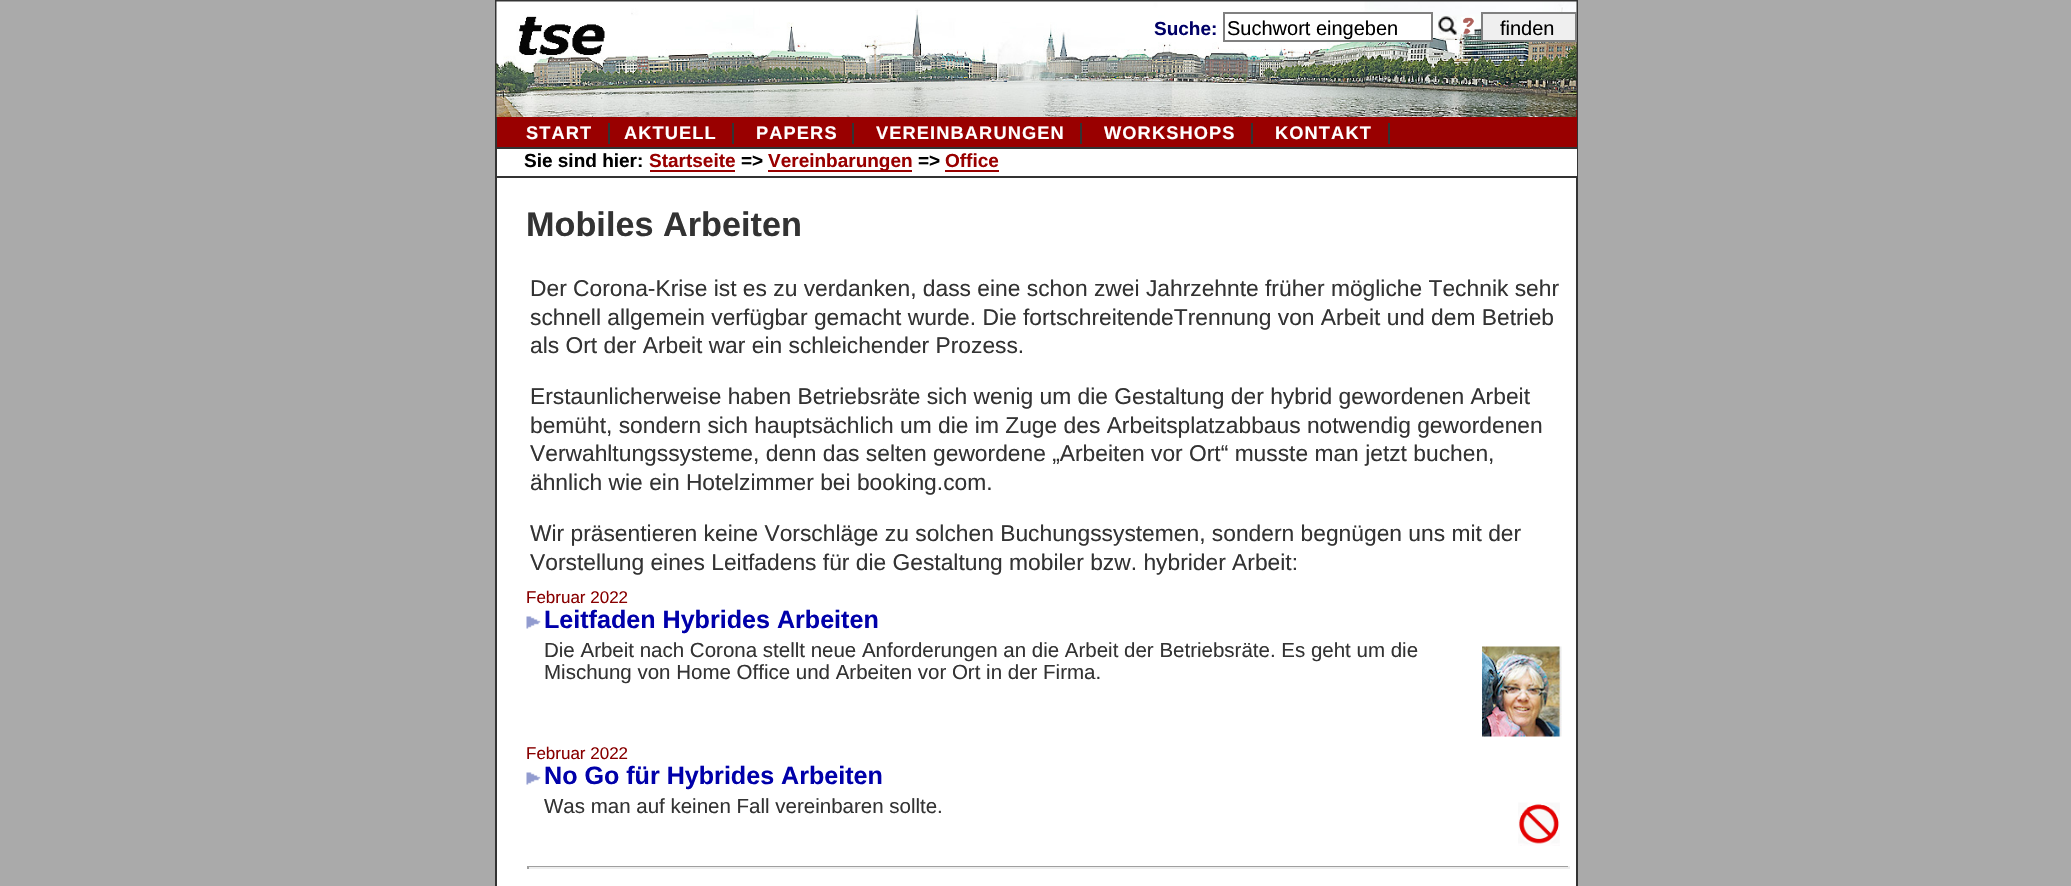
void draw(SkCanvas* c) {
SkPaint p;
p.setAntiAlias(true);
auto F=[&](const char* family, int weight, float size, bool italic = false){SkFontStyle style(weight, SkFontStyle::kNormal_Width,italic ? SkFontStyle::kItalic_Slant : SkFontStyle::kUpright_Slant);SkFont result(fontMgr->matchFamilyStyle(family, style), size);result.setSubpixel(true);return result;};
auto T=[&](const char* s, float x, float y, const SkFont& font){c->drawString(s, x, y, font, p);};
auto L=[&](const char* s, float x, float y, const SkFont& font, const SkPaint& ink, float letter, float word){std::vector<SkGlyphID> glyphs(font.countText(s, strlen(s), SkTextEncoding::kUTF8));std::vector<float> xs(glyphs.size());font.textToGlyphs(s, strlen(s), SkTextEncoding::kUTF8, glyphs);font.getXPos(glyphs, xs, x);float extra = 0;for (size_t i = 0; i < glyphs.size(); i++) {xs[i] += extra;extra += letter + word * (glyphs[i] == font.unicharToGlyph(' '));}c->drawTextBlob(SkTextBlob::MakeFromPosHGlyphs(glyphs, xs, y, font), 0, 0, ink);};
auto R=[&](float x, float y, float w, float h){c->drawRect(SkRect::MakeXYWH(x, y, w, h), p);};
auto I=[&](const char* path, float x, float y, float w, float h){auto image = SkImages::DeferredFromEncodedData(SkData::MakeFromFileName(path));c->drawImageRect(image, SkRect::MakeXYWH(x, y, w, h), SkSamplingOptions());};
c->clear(0xffaaaaaa);
p.setColor(0xffffffff);
R(497,178,1079,708);
p.setStroke(true);
p.setStrokeWidth(2);
p.setColor(0xff333333);
c->drawRect(SkRect::MakeXYWH(496,1,1081,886),p);
p.setStroke(false);
p.setColor(0xff990000);
R(497,110,1080,37);
I("1.png",496,1,1081,116);
auto f1 = F("Liberation Sans",700,19);
p.setColor(0xff000066);
T("Suche:",1154,35,f1);
p.setColor(0xffffffff);
R(1340,14,91,26);
p.setStroke(true);
p.setColor(0xff808080);
c->drawRect(SkRect::MakeXYWH(1224,13,208,28),p);
auto f2 = F("Liberation Sans",400,20);
p.setStroke(false);
p.setColor(0xff000000);
T("Suchwort eingeben",1227,35,f2);
I("2.png",1438,16,19,19);
I("3.png",1461,17,14,18);
p.setColor(0xffefefef);
c->drawRect(SkRect::MakeXYWH(1482,13,94,28),p);
p.setStroke(true);
p.setColor(0xff808080);
c->drawRect(SkRect::MakeXYWH(1482,13,94,28),p);
p.setStroke(false);
p.setColor(0xff000000);
T("finden",1500,35,f2);
p.setColor(0xff333333);
R(497,147,1080,2);
auto f3 = F("Liberation Sans",700,18.25);
p.setColor(0xffffffff);
L("START",526,139,f3,p,1.1,0);
p.setColor(0xff333333);
R(608,123,2,21);
p.setColor(0xffffffff);
L("AKTUELL",624,139,f3,p,1.1,0);
p.setColor(0xff333333);
R(732,123,2,21);
p.setColor(0xffffffff);
L("PAPERS",756,139,f3,p,1.1,0);
p.setColor(0xff333333);
R(852,123,2,21);
p.setColor(0xffffffff);
L("VEREINBARUNGEN",876,139,f3,p,1.1,0);
p.setColor(0xff333333);
R(1080,123,2,21);
p.setColor(0xffffffff);
L("WORKSHOPS",1104,139,f3,p,1.1,0);
p.setColor(0xff333333);
R(1251,123,2,21);
p.setColor(0xffffffff);
L("KONTAKT",1275,139,f3,p,1.1,0);
p.setColor(0xff333333);
R(1388,123,2,21);
p.setColor(0xffffffff);
R(497,149,1080,27);
p.setColor(0xff333333);
R(497,176,1080,2);
p.setColor(0xff000000);
T("Sie sind hier:",524,167,f1);
p.setColor(0xff990000);
T("Startseite",649,167,f1);
R(650,170,85,2);
p.setColor(0xff000000);
T("=>",741,167,f1);
p.setColor(0xff990000);
R(768,170,144,2);
T("Vereinbarungen",768,167,f1);
p.setColor(0xff000000);
T("=>",918,167,f1);
p.setColor(0xff990000);
T("Office",945,167,f1);
R(945,170,54,2);
auto f4 = F("Liberation Sans",700,34.25);
p.setColor(0xff333333);
T("Mobiles Arbeiten",526,236,f4);
auto f5 = F("Liberation Sans",400,22.8);
T("Der Corona-Krise ist es zu verdanken, dass eine schon zwei Jahrzehnte früher mögliche Technik sehr",530,296,f5);
T("schnell allgemein verfügbar gemacht wurde. Die fortschreitendeTrennung von Arbeit und dem Betrieb",530,325,f5);
T("als Ort der Arbeit war ein schleichender Prozess.",530,353,f5);
T("Erstaunlicherweise haben Betriebsräte sich wenig um die Gestaltung der hybrid gewordenen Arbeit",530,404,f5);
T("bemüht, sondern sich hauptsächlich um die im Zuge des Arbeitsplatzabbaus notwendig gewordenen",530,433,f5);
T("Verwahltungssysteme, denn das selten gewordene „Arbeiten vor Ort“ musste man jetzt buchen,",530,461,f5);
T("ähnlich wie ein Hotelzimmer bei booking.com.",530,490,f5);
T("Wir präsentieren keine Vorschläge zu solchen Buchungssystemen, sondern begnügen uns mit der",530,541,f5);
T("Vorstellung eines Leitfadens für die Gestaltung mobiler bzw. hybrider Arbeit:",530,570,f5);
auto f6 = F("Liberation Sans",400,17);
p.setColor(0xff880000);
T("Februar 2022",526,603,f6);
I("4.png",526,616,15,13);
auto f7 = F("Liberation Sans",700,25.1);
p.setColor(0xff0000aa);
T("Leitfaden Hybrides Arbeiten",544,628,f7);
auto f8 = F("Liberation Sans",400,20.5);
p.setColor(0xff333333);
T("Die Arbeit nach Corona stellt neue Anforderungen an die Arbeit der Betriebsräte. Es geht um die",544,657,f8);
I("5.png",1482,646,80,91);
T("Mischung von Home Office und Arbeiten vor Ort in der Firma.",544,679,f8);
p.setColor(0xff880000);
T("Februar 2022",526,759,f6);
I("4.png",526,772,15,13);
p.setColor(0xff0000aa);
T("No Go für Hybrides Arbeiten",544,784,f7);
p.setColor(0xff333333);
T("Was man auf keinen Fall vereinbaren sollte.",544,813,f8);
I("6.png",1518,802,42,44);
p.setColor(0xff9f9f9f);
R(527,866,1042,1);
p.setColor(0xffeeeeee);
R(1568,866,2,3);
R(527,867,1042,2);
p.setColor(0xff9f9f9f);
R(527,866,2,3);
}
